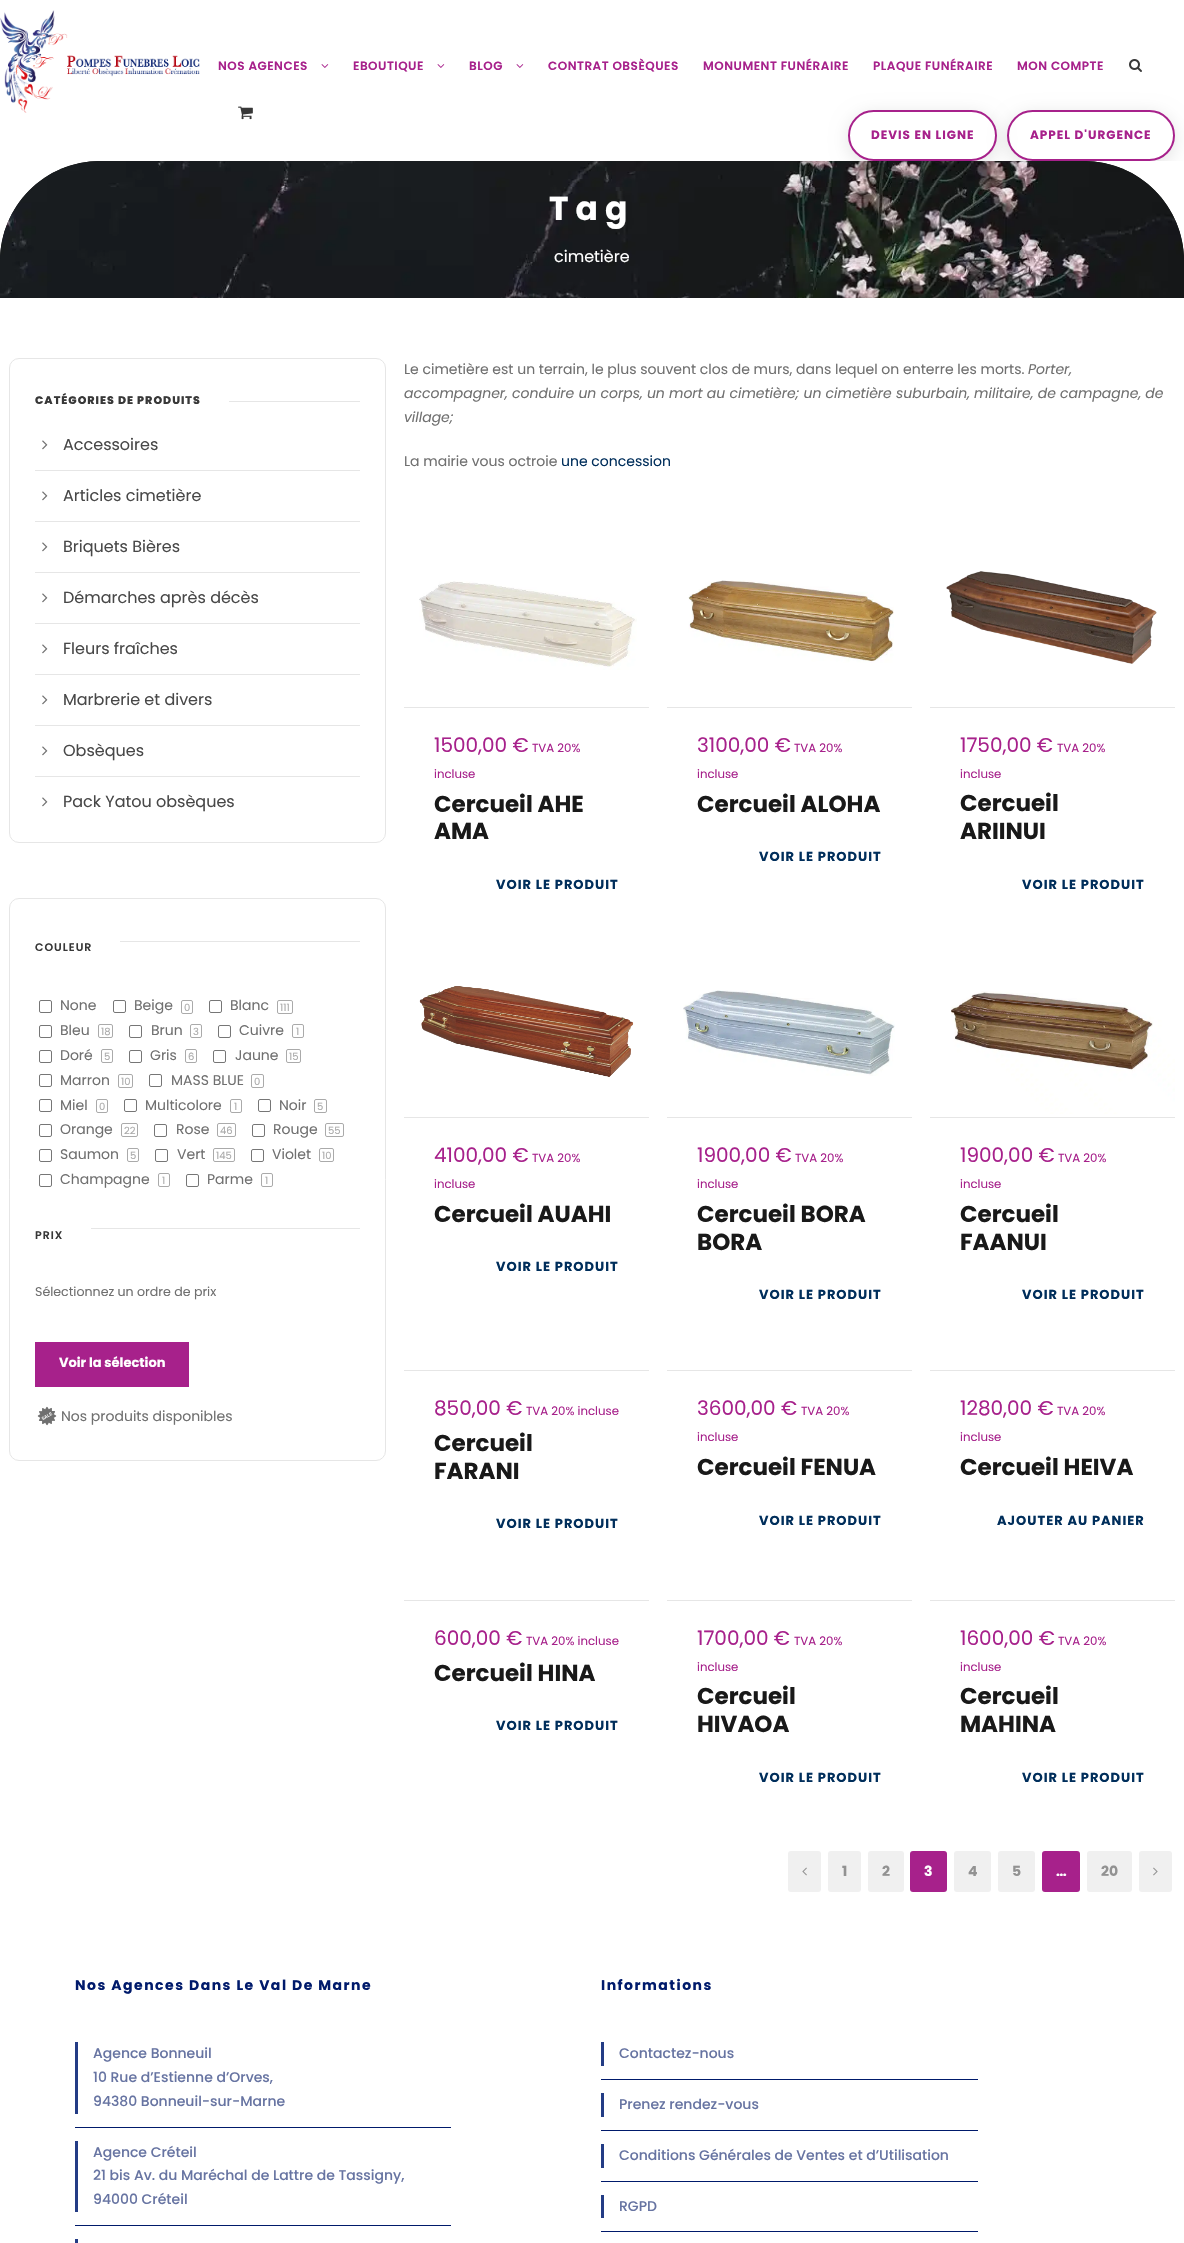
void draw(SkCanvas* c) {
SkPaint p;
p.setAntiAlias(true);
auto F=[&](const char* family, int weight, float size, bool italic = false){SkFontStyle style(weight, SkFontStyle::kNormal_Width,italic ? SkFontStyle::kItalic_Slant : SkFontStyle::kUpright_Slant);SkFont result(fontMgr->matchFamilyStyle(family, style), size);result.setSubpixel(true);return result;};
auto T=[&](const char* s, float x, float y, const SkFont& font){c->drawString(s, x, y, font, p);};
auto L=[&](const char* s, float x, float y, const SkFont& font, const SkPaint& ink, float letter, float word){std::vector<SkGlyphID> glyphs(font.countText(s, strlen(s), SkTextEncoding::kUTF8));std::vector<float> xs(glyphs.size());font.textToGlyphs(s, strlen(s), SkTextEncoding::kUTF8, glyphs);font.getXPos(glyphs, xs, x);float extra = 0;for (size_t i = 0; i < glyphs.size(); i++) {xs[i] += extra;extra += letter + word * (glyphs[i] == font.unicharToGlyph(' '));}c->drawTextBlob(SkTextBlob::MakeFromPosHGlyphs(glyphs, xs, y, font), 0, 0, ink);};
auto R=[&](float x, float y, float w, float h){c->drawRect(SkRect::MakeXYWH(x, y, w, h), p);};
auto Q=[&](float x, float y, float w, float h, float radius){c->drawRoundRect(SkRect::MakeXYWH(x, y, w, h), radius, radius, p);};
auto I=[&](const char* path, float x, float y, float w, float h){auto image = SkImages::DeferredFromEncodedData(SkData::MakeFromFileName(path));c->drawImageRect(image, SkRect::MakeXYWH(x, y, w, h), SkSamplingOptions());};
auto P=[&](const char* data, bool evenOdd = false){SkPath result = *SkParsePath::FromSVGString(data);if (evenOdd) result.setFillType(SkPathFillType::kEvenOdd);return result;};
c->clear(0xffffffff);
I("1.png",0,10,200,103);
auto f1 = F("Poppins",600,12);
p.setColor(0xffa7218b);
L("NOS AGENCES",218,70,f1,p,.5,0);
I("2.png",321,64,8,4);
L("EBOUTIQUE",353,70,f1,p,.5,0);
I("2.png",437,64,8,4);
L("BLOG",469,70,f1,p,.5,0);
I("2.png",516,64,8,4);
L("CONTRAT OBSÈQUES",548,70,f1,p,.5,0);
L("MONUMENT FUNÉRAIRE",703,70,f1,p,.5,0);
L("PLAQUE FUNÉRAIRE",873,70,f1,p,.5,0);
L("MON COMPTE",1017,70,f1,p,.5,0);
I("3.png",1129,59,13,13);
I("4.png",238,106,15,14);
p.setColor(0xff000000);
c->drawPath(P("M100 161h984c55 0 100 45 100 100v37h-1184v-37c0-55 45-100 100-100z"),p);
I("5.png",0,161,1184,137);
c->save();
c->clipRect(SkRect::MakeXYWH(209,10,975,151));
c->clipPath(P("M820 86h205v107h-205zm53.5 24h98c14 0 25.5 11.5 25.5 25.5c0 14-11.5 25.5-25.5 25.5h-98c-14 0-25.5-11.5-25.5-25.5c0-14 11.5-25.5 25.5-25.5z",true),true);
p.setColor(0x1c000000);
p.setMaskFilter(SkMaskFilter::MakeBlur(kNormal_SkBlurStyle, 9));
c->drawRoundRect(SkRect::MakeXYWH(848,114,149,51),25.5,25.5,p);
p.setMaskFilter(nullptr);
c->restore();
p.setStroke(true);
p.setStrokeWidth(2);
p.setColor(0xffa7218b);
c->drawRoundRect(SkRect::MakeXYWH(849,111,147,49),24.5,24.5,p);
auto f2 = F("Poppins",700,12);
p.setStroke(false);
L("DEVIS EN LIGNE",871,139,f2,p,1,0);
c->save();
c->clipRect(SkRect::MakeXYWH(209,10,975,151));
c->clipPath(P("M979 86h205v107h-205zm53.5 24h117c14 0 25.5 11.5 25.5 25.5c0 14-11.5 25.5-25.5 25.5h-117c-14 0-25.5-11.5-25.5-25.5c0-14 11.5-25.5 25.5-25.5z",true),true);
p.setColor(0x1c000000);
p.setMaskFilter(SkMaskFilter::MakeBlur(kNormal_SkBlurStyle, 9));
c->drawRoundRect(SkRect::MakeXYWH(1007,114,168,51),25.5,25.5,p);
p.setMaskFilter(nullptr);
c->restore();
p.setStroke(true);
p.setColor(0xffa7218b);
c->drawRoundRect(SkRect::MakeXYWH(1008,111,166,49),24.5,24.5,p);
p.setStroke(false);
L("APPEL D'URGENCE",1030,139,f2,p,1,0);
auto f3 = F("Poppins",700,33);
p.setColor(0xffffffff);
L("Tag",549,220,f3,p,7,0);
auto f4 = F("Poppins",400,16);
T("cimetière",554,262,f4);
p.setStroke(true);
p.setStrokeWidth(1);
p.setColor(0xffe6e6e6);
c->drawRoundRect(SkRect::MakeXYWH(9.5,358.5,376,484),9.5,9.5,p);
auto f5 = F("Poppins",800,11);
p.setStroke(false);
p.setColor(0xff383838);
L("CATÉGORIES DE PRODUITS",35,404,f5,p,1,0);
p.setColor(0xffe6e6e6);
R(229,401,131,1);
R(35,470,325,1);
I("6.png",42,440,6,10);
p.setColor(0xff484848);
T("Accessoires",63,450,f4);
p.setColor(0xffe6e6e6);
R(35,521,325,1);
I("6.png",42,491,6,10);
p.setColor(0xff484848);
T("Articles cimetière",63,501,f4);
p.setColor(0xffe6e6e6);
R(35,572,325,1);
I("6.png",42,542,6,10);
p.setColor(0xff484848);
T("Briquets Bières",63,552,f4);
p.setColor(0xffe6e6e6);
R(35,623,325,1);
I("6.png",42,593,6,10);
p.setColor(0xff484848);
T("Démarches après décès",63,603,f4);
p.setColor(0xffe6e6e6);
R(35,674,325,1);
I("6.png",42,644,6,10);
p.setColor(0xff484848);
T("Fleurs fraîches",63,654,f4);
p.setColor(0xffe6e6e6);
R(35,725,325,1);
I("6.png",42,695,6,10);
p.setColor(0xff484848);
T("Marbrerie et divers",63,705,f4);
p.setColor(0xffe6e6e6);
R(35,776,325,1);
I("6.png",42,746,6,10);
p.setColor(0xff484848);
T("Obsèques",63,756,f4);
I("6.png",42,797,6,10);
T("Pack Yatou obsèques",63,807,f4);
p.setStroke(true);
p.setColor(0xffe6e6e6);
c->drawRoundRect(SkRect::MakeXYWH(9.5,898.5,376,562),9.5,9.5,p);
p.setStroke(false);
R(120,941,240,1);
auto f6 = F("Poppins",600,11);
p.setColor(0xff383838);
L("COULEUR",35,951,f6,p,1,0);
p.setStroke(true);
p.setColor(0xff767676);
c->drawRoundRect(SkRect::MakeXYWH(39.5,1000.5,12,12),1.5,1.5,p);
auto f7 = F("Poppins",400,14);
p.setStroke(false);
p.setColor(0xff707070);
T("None",60,1010,f7);
p.setStroke(true);
p.setColor(0xff767676);
c->drawRoundRect(SkRect::MakeXYWH(113.5,1000.5,12,12),1.5,1.5,p);
p.setStroke(false);
p.setColor(0xff707070);
T("Beige",134,1010,f7);
p.setStroke(true);
p.setColor(0xffaaaaaa);
c->drawRoundRect(SkRect::MakeXYWH(181.5,1000.5,11,13),1.5,1.5,p);
auto f8 = F("Poppins",400,10);
p.setStroke(false);
T("0",184,1011,f8);
p.setStroke(true);
p.setColor(0xff767676);
c->drawRoundRect(SkRect::MakeXYWH(209.5,1000.5,12,12),1.5,1.5,p);
p.setStroke(false);
p.setColor(0xff707070);
T("Blanc",230,1010,f7);
p.setStroke(true);
p.setColor(0xffaaaaaa);
c->drawRoundRect(SkRect::MakeXYWH(277.5,1000.5,15,13),1.5,1.5,p);
p.setStroke(false);
T("111",280,1011,f8);
p.setStroke(true);
p.setColor(0xff767676);
c->drawRoundRect(SkRect::MakeXYWH(39.5,1025.5,12,12),1.5,1.5,p);
p.setStroke(false);
p.setColor(0xff707070);
T("Bleu",60,1035,f7);
p.setStroke(true);
p.setColor(0xffaaaaaa);
c->drawRoundRect(SkRect::MakeXYWH(98.5,1024.5,14,13),1.5,1.5,p);
p.setStroke(false);
T("18",101,1035,f8);
p.setStroke(true);
p.setColor(0xff767676);
c->drawRoundRect(SkRect::MakeXYWH(129.5,1025.5,12,12),1.5,1.5,p);
p.setStroke(false);
p.setColor(0xff707070);
T("Brun",151,1035,f7);
p.setStroke(true);
p.setColor(0xffaaaaaa);
c->drawRoundRect(SkRect::MakeXYWH(190.5,1024.5,11,13),1.5,1.5,p);
p.setStroke(false);
T("3",193,1035,f8);
p.setStroke(true);
p.setColor(0xff767676);
c->drawRoundRect(SkRect::MakeXYWH(218.5,1025.5,12,12),1.5,1.5,p);
p.setStroke(false);
p.setColor(0xff707070);
T("Cuivre",239,1035,f7);
p.setStroke(true);
p.setColor(0xffaaaaaa);
c->drawRoundRect(SkRect::MakeXYWH(292.5,1024.5,11,13),1.5,1.5,p);
p.setStroke(false);
T("1",296,1035,f8);
p.setStroke(true);
p.setColor(0xff767676);
c->drawRoundRect(SkRect::MakeXYWH(39.5,1050.5,12,12),1.5,1.5,p);
p.setStroke(false);
p.setColor(0xff707070);
T("Doré",60,1060,f7);
p.setStroke(true);
p.setColor(0xffaaaaaa);
c->drawRoundRect(SkRect::MakeXYWH(101.5,1049.5,11,13),1.5,1.5,p);
p.setStroke(false);
T("5",104,1060,f8);
p.setStroke(true);
p.setColor(0xff767676);
c->drawRoundRect(SkRect::MakeXYWH(129.5,1050.5,12,12),1.5,1.5,p);
p.setStroke(false);
p.setColor(0xff707070);
T("Gris",150,1060,f7);
p.setStroke(true);
p.setColor(0xffaaaaaa);
c->drawRoundRect(SkRect::MakeXYWH(185.5,1049.5,11,13),1.5,1.5,p);
p.setStroke(false);
T("6",188,1060,f8);
p.setStroke(true);
p.setColor(0xff767676);
c->drawRoundRect(SkRect::MakeXYWH(213.5,1050.5,12,12),1.5,1.5,p);
p.setStroke(false);
p.setColor(0xff707070);
T("Jaune",235,1060,f7);
p.setStroke(true);
p.setColor(0xffaaaaaa);
c->drawRoundRect(SkRect::MakeXYWH(286.5,1049.5,14,13),1.5,1.5,p);
p.setStroke(false);
T("15",289,1060,f8);
p.setStroke(true);
p.setColor(0xff767676);
c->drawRoundRect(SkRect::MakeXYWH(39.5,1074.5,12,12),1.5,1.5,p);
p.setStroke(false);
p.setColor(0xff707070);
T("Marron",60,1085,f7);
p.setStroke(true);
p.setColor(0xffaaaaaa);
c->drawRoundRect(SkRect::MakeXYWH(118.5,1074.5,14,13),1.5,1.5,p);
p.setStroke(false);
T("10",121,1085,f8);
p.setStroke(true);
p.setColor(0xff767676);
c->drawRoundRect(SkRect::MakeXYWH(149.5,1074.5,12,12),1.5,1.5,p);
p.setStroke(false);
p.setColor(0xff707070);
T("MASS BLUE",171,1085,f7);
p.setStroke(true);
p.setColor(0xffaaaaaa);
c->drawRoundRect(SkRect::MakeXYWH(251.5,1074.5,12,13),1.5,1.5,p);
p.setStroke(false);
T("0",254,1085,f8);
p.setStroke(true);
p.setColor(0xff767676);
c->drawRoundRect(SkRect::MakeXYWH(39.5,1099.5,12,12),1.5,1.5,p);
p.setStroke(false);
p.setColor(0xff707070);
T("Miel",60,1110,f7);
p.setStroke(true);
p.setColor(0xffaaaaaa);
c->drawRoundRect(SkRect::MakeXYWH(96.5,1099.5,11,13),1.5,1.5,p);
p.setStroke(false);
T("0",99,1110,f8);
p.setStroke(true);
p.setColor(0xff767676);
c->drawRoundRect(SkRect::MakeXYWH(124.5,1099.5,12,12),1.5,1.5,p);
p.setStroke(false);
p.setColor(0xff707070);
T("Multicolore",145,1110,f7);
p.setStroke(true);
p.setColor(0xffaaaaaa);
c->drawRoundRect(SkRect::MakeXYWH(230.5,1099.5,11,13),1.5,1.5,p);
p.setStroke(false);
T("1",234,1110,f8);
p.setStroke(true);
p.setColor(0xff767676);
c->drawRoundRect(SkRect::MakeXYWH(258.5,1099.5,12,12),1.5,1.5,p);
p.setStroke(false);
p.setColor(0xff707070);
T("Noir",279,1110,f7);
p.setStroke(true);
p.setColor(0xffaaaaaa);
c->drawRoundRect(SkRect::MakeXYWH(314.5,1099.5,12,13),1.5,1.5,p);
p.setStroke(false);
T("5",317,1110,f8);
p.setStroke(true);
p.setColor(0xff767676);
c->drawRoundRect(SkRect::MakeXYWH(39.5,1124.5,12,12),1.5,1.5,p);
p.setStroke(false);
p.setColor(0xff707070);
T("Orange",60,1134,f7);
p.setStroke(true);
p.setColor(0xffaaaaaa);
c->drawRoundRect(SkRect::MakeXYWH(121.5,1123.5,16,13),1.5,1.5,p);
p.setStroke(false);
T("22",124,1134,f8);
p.setStroke(true);
p.setColor(0xff767676);
c->drawRoundRect(SkRect::MakeXYWH(154.5,1124.5,12,12),1.5,1.5,p);
p.setStroke(false);
p.setColor(0xff707070);
T("Rose",176,1134,f7);
p.setStroke(true);
p.setColor(0xffaaaaaa);
c->drawRoundRect(SkRect::MakeXYWH(217.5,1123.5,18,13),1.5,1.5,p);
p.setStroke(false);
T("46",220,1134,f8);
p.setStroke(true);
p.setColor(0xff767676);
c->drawRoundRect(SkRect::MakeXYWH(252.5,1124.5,12,12),1.5,1.5,p);
p.setStroke(false);
p.setColor(0xff707070);
T("Rouge",273,1134,f7);
p.setStroke(true);
p.setColor(0xffaaaaaa);
c->drawRoundRect(SkRect::MakeXYWH(325.5,1123.5,18,13),1.5,1.5,p);
p.setStroke(false);
T("55",328,1134,f8);
p.setStroke(true);
p.setColor(0xff767676);
c->drawRoundRect(SkRect::MakeXYWH(39.5,1149.5,12,12),1.5,1.5,p);
p.setStroke(false);
p.setColor(0xff707070);
T("Saumon",60,1159,f7);
p.setStroke(true);
p.setColor(0xffaaaaaa);
c->drawRoundRect(SkRect::MakeXYWH(127.5,1148.5,11,13),1.5,1.5,p);
p.setStroke(false);
T("5",130,1159,f8);
p.setStroke(true);
p.setColor(0xff767676);
c->drawRoundRect(SkRect::MakeXYWH(155.5,1149.5,12,12),1.5,1.5,p);
p.setStroke(false);
p.setColor(0xff707070);
T("Vert",177,1159,f7);
p.setStroke(true);
p.setColor(0xffaaaaaa);
c->drawRoundRect(SkRect::MakeXYWH(213.5,1148.5,21,13),1.5,1.5,p);
p.setStroke(false);
T("145",216,1159,f8);
p.setStroke(true);
p.setColor(0xff767676);
c->drawRoundRect(SkRect::MakeXYWH(251.5,1149.5,12,12),1.5,1.5,p);
p.setStroke(false);
p.setColor(0xff707070);
T("Violet",272,1159,f7);
p.setStroke(true);
p.setColor(0xffaaaaaa);
c->drawRoundRect(SkRect::MakeXYWH(319.5,1148.5,14,13),1.5,1.5,p);
p.setStroke(false);
T("10",322,1159,f8);
p.setStroke(true);
p.setColor(0xff767676);
c->drawRoundRect(SkRect::MakeXYWH(39.5,1174.5,12,12),1.5,1.5,p);
p.setStroke(false);
p.setColor(0xff707070);
T("Champagne",60,1184,f7);
p.setStroke(true);
p.setColor(0xffaaaaaa);
c->drawRoundRect(SkRect::MakeXYWH(158.5,1173.5,11,13),1.5,1.5,p);
p.setStroke(false);
T("1",162,1184,f8);
p.setStroke(true);
p.setColor(0xff767676);
c->drawRoundRect(SkRect::MakeXYWH(186.5,1174.5,12,12),1.5,1.5,p);
p.setStroke(false);
p.setColor(0xff707070);
T("Parme",207,1184,f7);
p.setStroke(true);
p.setColor(0xffaaaaaa);
c->drawRoundRect(SkRect::MakeXYWH(261.5,1173.5,11,13),1.5,1.5,p);
p.setStroke(false);
T("1",265,1184,f8);
p.setColor(0xffe6e6e6);
R(91,1228,269,1);
p.setColor(0xff383838);
L("PRIX",35,1239,f6,p,1,0);
auto f9 = F("Poppins",400,12.6);
p.setColor(0xff707070);
T("Sélectionnez un ordre de prix",35,1296,f9);
p.setColor(0xffa7218b);
R(35,1342,154,45);
auto f10 = F("Poppins",700,13);
p.setColor(0xffffffff);
T("Voir la sélection",59,1367,f10);
I("7.png",37,1406,20,20);
p.setColor(0xff707070);
T("Nos produits disponibles",61,1421,f7);
T("Le cimetière est un terrain, le plus souvent clos de murs, dans lequel on enterre les morts.",404,374,f7);
auto f11 = F("Poppins",400,14,true);
T("Porter,",1028,374,f11);
T("accompagner, conduire un corps, un mort au cimetière; un cimetière suburbain, militaire, de campagne, de",404,398,f11);
T("village;",404,422,f11);
T("La mairie vous octroie",404,466,f7);
p.setColor(0xff002e5b);
T("une concession",561,466,f7);
p.setColor(0xffe6e6e6);
R(404,707,245,1);
I("8.png",419,581,218,89);
auto f12 = F("Poppins",400,20);
p.setColor(0xffa7218b);
T("1500,00 €",434,752,f12);
auto f13 = F("Poppins",400,11.75);
T("TVA 20%",532,752,f13);
T("incluse",434,778,f13);
auto f14 = F("Poppins",700,23);
p.setColor(0xff191919);
T("Cercueil AHE",434,812,f14);
T("AMA",434,839,f14);
p.setColor(0xff002e5b);
L("VOIR LE PRODUIT",496,889,f10,p,1,0);
p.setColor(0xffe6e6e6);
R(667,707,245,1);
I("9.png",688,580,206,83);
p.setColor(0xffa7218b);
T("3100,00 €",697,752,f12);
T("TVA 20%",794,752,f13);
T("incluse",697,778,f13);
p.setColor(0xff191919);
T("Cercueil ALOHA",697,812,f14);
p.setColor(0xff002e5b);
L("VOIR LE PRODUIT",759,861,f10,p,1,0);
p.setColor(0xffe6e6e6);
R(930,707,245,1);
I("10.png",946,571,211,93);
p.setColor(0xffa7218b);
T("1750,00 €",960,752,f12);
T("TVA 20%",1057,752,f13);
T("incluse",960,778,f13);
p.setColor(0xff191919);
T("Cercueil",960,811,f14);
T("ARIINUI",960,839,f14);
p.setColor(0xff002e5b);
L("VOIR LE PRODUIT",1022,889,f10,p,1,0);
p.setColor(0xffe6e6e6);
R(404,1117,245,1);
I("11.png",419,986,215,91);
p.setColor(0xffa7218b);
T("4100,00 €",434,1162,f12);
T("TVA 20%",532,1162,f13);
T("incluse",434,1188,f13);
p.setColor(0xff191919);
T("Cercueil AUAHI",434,1222,f14);
p.setColor(0xff002e5b);
L("VOIR LE PRODUIT",496,1271,f10,p,1,0);
p.setColor(0xffe6e6e6);
R(667,1117,245,1);
I("12.png",683,990,212,86);
p.setColor(0xffa7218b);
T("1900,00 €",697,1162,f12);
T("TVA 20%",795,1162,f13);
T("incluse",697,1188,f13);
p.setColor(0xff191919);
T("Cercueil BORA",697,1222,f14);
T("BORA",697,1250,f14);
p.setColor(0xff002e5b);
L("VOIR LE PRODUIT",759,1299,f10,p,1,0);
p.setColor(0xffe6e6e6);
R(930,1117,245,1);
I("13.png",951,991,224,123);
p.setColor(0xffa7218b);
T("1900,00 €",960,1162,f12);
T("TVA 20%",1058,1162,f13);
T("incluse",960,1188,f13);
p.setColor(0xff191919);
T("Cercueil",960,1222,f14);
T("FAANUI",960,1250,f14);
p.setColor(0xff002e5b);
L("VOIR LE PRODUIT",1022,1299,f10,p,1,0);
p.setColor(0xffe6e6e6);
R(404,1370,245,1);
p.setColor(0xffa7218b);
T("850,00 €",434,1415,f12);
T("TVA 20% incluse",526,1415,f13);
p.setColor(0xff191919);
T("Cercueil",434,1451,f14);
T("FARANI",434,1479,f14);
p.setColor(0xff002e5b);
L("VOIR LE PRODUIT",496,1528,f10,p,1,0);
p.setColor(0xffe6e6e6);
R(667,1370,245,1);
p.setColor(0xffa7218b);
T("3600,00 €",697,1415,f12);
T("TVA 20%",801,1415,f13);
T("incluse",697,1441,f13);
p.setColor(0xff191919);
T("Cercueil FENUA",697,1475,f14);
p.setColor(0xff002e5b);
L("VOIR LE PRODUIT",759,1525,f10,p,1,0);
p.setColor(0xffe6e6e6);
R(930,1370,245,1);
p.setColor(0xffa7218b);
T("1280,00 €",960,1415,f12);
T("TVA 20%",1057,1415,f13);
T("incluse",960,1441,f13);
p.setColor(0xff191919);
T("Cercueil HEIVA",960,1475,f14);
p.setColor(0xff002e5b);
L("AJOUTER AU PANIER",997,1525,f10,p,1,0);
p.setColor(0xffe6e6e6);
R(404,1600,245,1);
p.setColor(0xffa7218b);
T("600,00 €",434,1645,f12);
T("TVA 20% incluse",526,1645,f13);
p.setColor(0xff191919);
T("Cercueil HINA",434,1681,f14);
p.setColor(0xff002e5b);
L("VOIR LE PRODUIT",496,1730,f10,p,1,0);
p.setColor(0xffe6e6e6);
R(667,1600,245,1);
p.setColor(0xffa7218b);
T("1700,00 €",697,1645,f12);
T("TVA 20%",794,1645,f13);
T("incluse",697,1671,f13);
p.setColor(0xff191919);
T("Cercueil",697,1704,f14);
T("HIVAOA",697,1732,f14);
p.setColor(0xff002e5b);
L("VOIR LE PRODUIT",759,1782,f10,p,1,0);
p.setColor(0xffe6e6e6);
R(930,1600,245,1);
p.setColor(0xffa7218b);
T("1600,00 €",960,1645,f12);
T("TVA 20%",1058,1645,f13);
T("incluse",960,1671,f13);
p.setColor(0xff191919);
T("Cercueil",960,1704,f14);
T("MAHINA",960,1732,f14);
p.setColor(0xff002e5b);
L("VOIR LE PRODUIT",1022,1782,f10,p,1,0);
p.setColor(0xfff0f0f0);
Q(788,1851,33,41,3);
I("14.png",802,1867,5,9);
Q(828,1851,33,41,3);
auto f15 = F("Poppins",700,14);
p.setColor(0xff929292);
T("1",842,1876,f15);
p.setColor(0xfff0f0f0);
Q(868,1851,36,41,3);
p.setColor(0xff929292);
T("2",882,1876,f15);
p.setColor(0xffa7218b);
Q(910,1851,37,41,3);
p.setColor(0xffffffff);
T("3",924,1876,f15);
p.setColor(0xfff0f0f0);
Q(954,1851,37,41,3);
p.setColor(0xff929292);
T("4",968,1876,f15);
p.setColor(0xfff0f0f0);
Q(998,1851,37,41,3);
p.setColor(0xff929292);
T("5",1012,1876,f15);
p.setColor(0xffa7218b);
Q(1042,1851,38,41,3);
p.setColor(0xffffffff);
T("…",1056,1876,f15);
p.setColor(0xfff0f0f0);
Q(1087,1851,45,41,3);
p.setColor(0xff929292);
T("20",1101,1876,f15);
p.setColor(0xfff0f0f0);
Q(1139,1851,33,41,3);
I("15.png",1153,1867,5,9);
p.setColor(0xff001a6b);
L("Nos Agences Dans Le Val De Marne",75,1990,f15,p,1.5,0);
R(75,2127,376,1);
p.setColor(0xff233c85);
R(75,2042,3,72);
auto f16 = F("Poppins",500,14);
p.setColor(0xff6774a2);
T("Agence Bonneuil",93,2058,f16);
T("10 Rue d’Estienne d’Orves,",93,2082,f16);
T("94380 Bonneuil-sur-Marne",93,2106,f16);
p.setColor(0xff001a6b);
R(75,2225,376,1);
p.setColor(0xff233c85);
R(75,2141,3,71);
p.setColor(0xff6774a2);
T("Agence Créteil",93,2157,f16);
T("21 bis Av. du Maréchal de Lattre de Tassigny,",93,2180,f16);
T("94000 Créteil",93,2204,f16);
p.setColor(0xff233c85);
R(75,2239,3,4);
p.setColor(0xff001a6b);
L("Informations",601,1990,f15,p,1.5,0);
R(601,2079,377,1);
p.setColor(0xff233c85);
R(601,2042,3,24);
p.setColor(0xff6774a2);
T("Contactez-nous",619,2058,f16);
p.setColor(0xff001a6b);
R(601,2130,377,1);
p.setColor(0xff233c85);
R(601,2093,3,24);
p.setColor(0xff6774a2);
T("Prenez rendez-vous",619,2109,f16);
p.setColor(0xff001a6b);
R(601,2181,377,1);
p.setColor(0xff233c85);
R(601,2144,3,24);
p.setColor(0xff6774a2);
T("Conditions Générales de Ventes et d’Utilisation",619,2160,f16);
p.setColor(0xff001a6b);
R(601,2231,377,1);
p.setColor(0xff233c85);
R(601,2195,3,23);
p.setColor(0xff6774a2);
T("RGPD",619,2211,f16);
}
